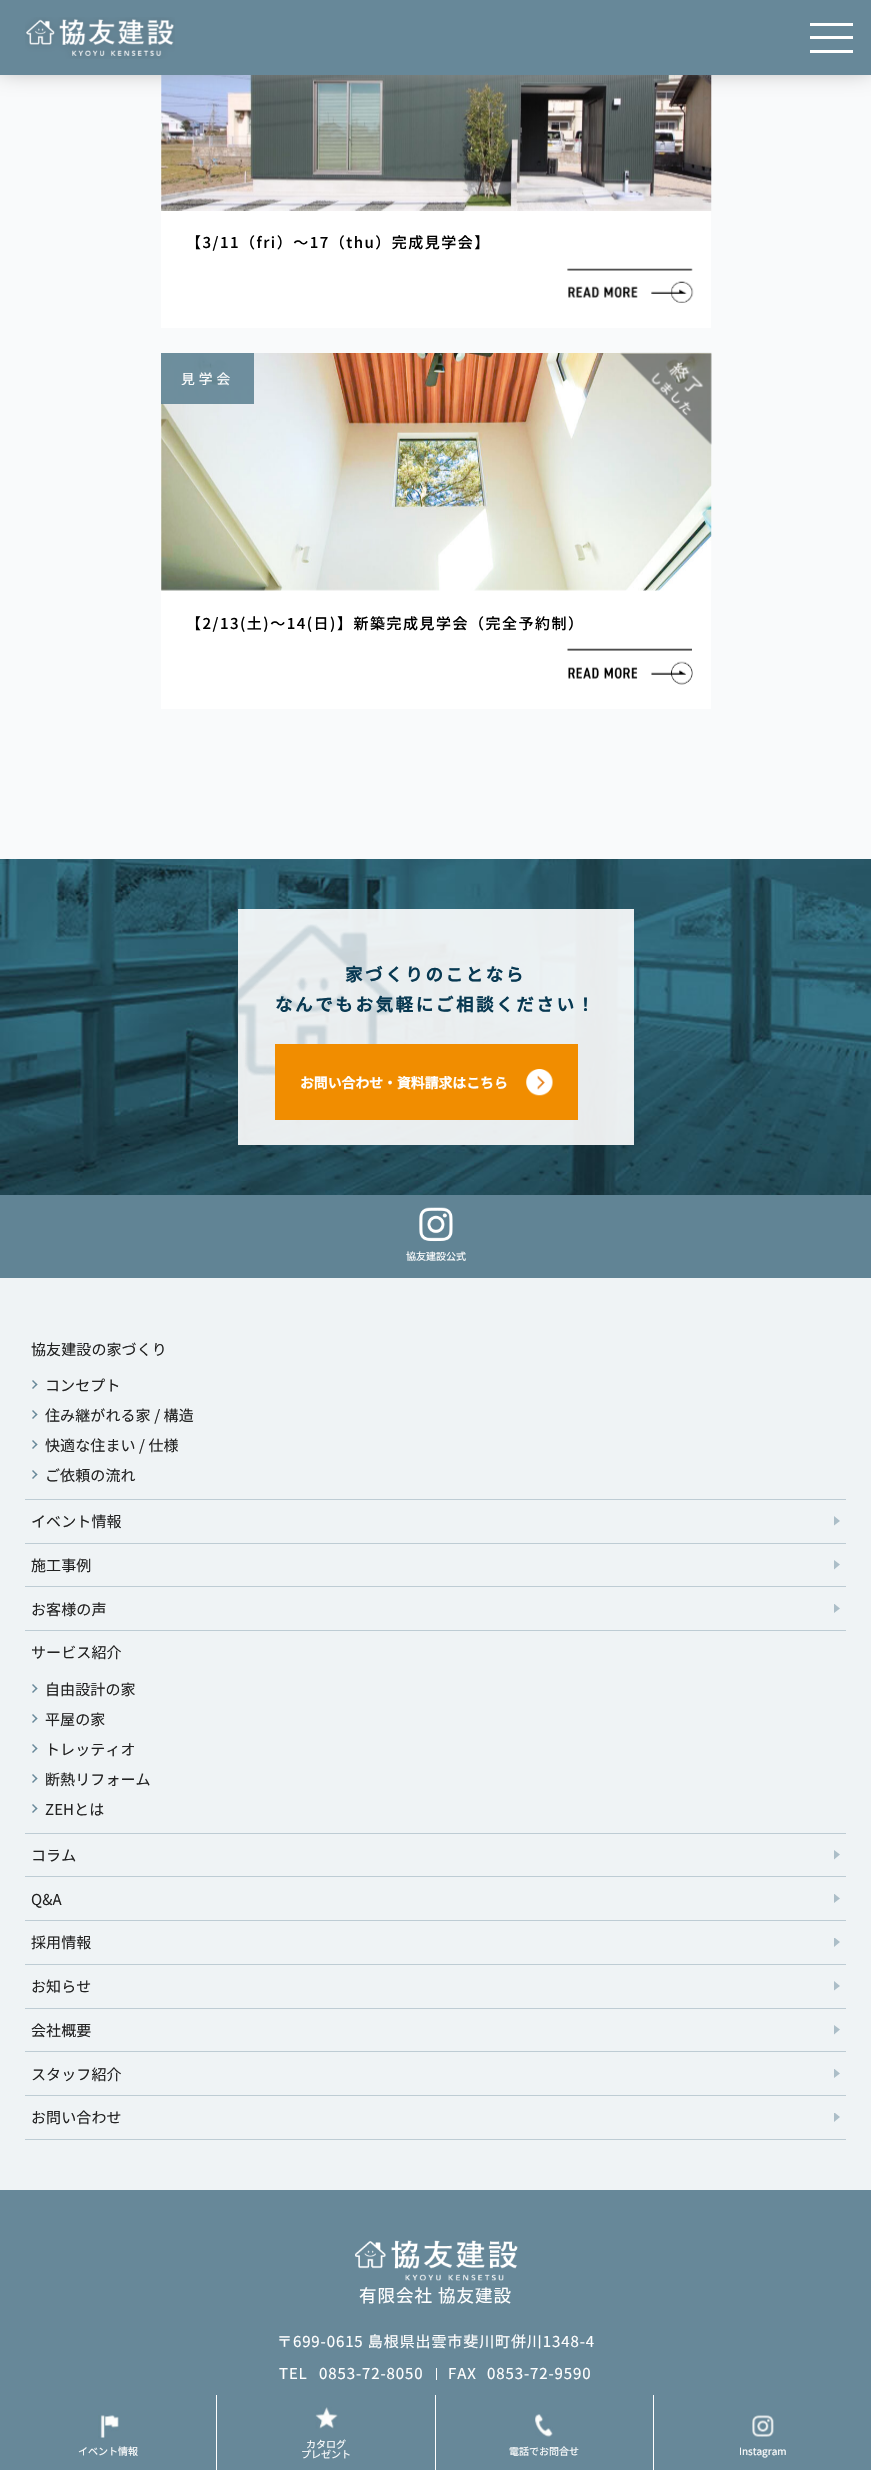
void draw(SkCanvas* c) {
SkPaint p;
p.setAntiAlias(true);
auto F=[&](const char* family, int weight, float size, bool italic = false){SkFontStyle style(weight, SkFontStyle::kNormal_Width,italic ? SkFontStyle::kItalic_Slant : SkFontStyle::kUpright_Slant);SkFont result(fontMgr->matchFamilyStyle(family, style), size);result.setSubpixel(true);return result;};
auto T=[&](const char* s, float x, float y, const SkFont& font){c->drawString(s, x, y, font, p);};
auto L=[&](const char* s, float x, float y, const SkFont& font, const SkPaint& ink, float letter, float word){std::vector<SkGlyphID> glyphs(font.countText(s, strlen(s), SkTextEncoding::kUTF8));std::vector<float> xs(glyphs.size());font.textToGlyphs(s, strlen(s), SkTextEncoding::kUTF8, glyphs);font.getXPos(glyphs, xs, x);float extra = 0;for (size_t i = 0; i < glyphs.size(); i++) {xs[i] += extra;extra += letter + word * (glyphs[i] == font.unicharToGlyph(' '));}c->drawTextBlob(SkTextBlob::MakeFromPosHGlyphs(glyphs, xs, y, font), 0, 0, ink);};
auto R=[&](float x, float y, float w, float h){c->drawRect(SkRect::MakeXYWH(x, y, w, h), p);};
auto I=[&](const char* path, float x, float y, float w, float h){auto image = SkImages::DeferredFromEncodedData(SkData::MakeFromFileName(path));c->drawImageRect(image, SkRect::MakeXYWH(x, y, w, h), SkSamplingOptions());};
auto P=[&](const char* data, bool evenOdd = false){SkPath result = *SkParsePath::FromSVGString(data);if (evenOdd) result.setFillType(SkPathFillType::kEvenOdd);return result;};
c->clear(0xfff9fafb);
p.setColor(0xffffffff);
R(161,210,550,118);
I("2.png",161,75,551,136);
p.setColor(0xff999999);
p.setMaskFilter(SkMaskFilter::MakeBlur(kNormal_SkBlurStyle, 12.5));
c->drawRect(SkRect::MakeXYWH(0,-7,871,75),p);
p.setMaskFilter(nullptr);
p.setColor(0xff678899);
R(0,0,871,75);
I("1.png",25,17,150,42);
p.setColor(0xffffffff);
R(810,23,43,3);
R(810,36,43,3);
R(810,50,43,3);
auto f1 = F("Noto Sans JP",500,15);
p.setColor(0xff000000);
L("【3/11（fri）～17（thu）完成見学会】",186,248,f1,p,1.5,0);
I("3.png",567,268,127,35);
p.setColor(0xffffffff);
R(161,590,550,119);
I("4.png",161,353,551,238);
p.setColor(0xe6618495);
R(161,353,93,51);
auto f2 = F("Noto Sans JP",400,13.75);
p.setColor(0xffffffff);
L("見学会",181,384,f2,p,4,0);
I("5.png",620,352,92,93);
p.setColor(0xff000000);
L("【2/13(土)～14(日)】新築完成見学会（完全予約制）",186,629,f1,p,1.5,0);
I("6.png",567,648,126,37);
I("7.png",0,859,871,336);
p.setColor(0xe6ffffff);
R(238,909,396,236);
I("8.png",237,924,159,152);
auto f3 = F("Noto Sans JP",700,17.5);
p.setColor(0xff083952);
L("家づくりのことなら",345,981,f3,p,2.6,0);
L("なんでもお気軽にご相談ください！",275,1011,f3,p,2.6,0);
p.setColor(0xfff18d00);
R(275,1044,303,76);
auto f4 = F("Noto Sans JP",700,13.75);
p.setColor(0xffffffff);
L("お問い合わせ・資料請求はこちら",300,1088,f4,p,.1,0);
I("9.png",526,1069,27,27);
p.setColor(0xff618495);
R(0,1195,871,83);
I("10.png",419,1207,34,35);
auto f5 = F("Noto Sans JP",400,10);
p.setColor(0xffffffff);
T("協友建設公式",406,1260,f5);
p.setColor(0xffeff3f5);
R(0,1278,871,912);
p.setColor(0xffbeccd4);
R(25,1499,821,1);
auto f6 = F("Noto Sans JP",400,15);
p.setColor(0xff222222);
L("協友建設の家づくり",31,1355,f6,p,.1,0);
p.setColor(0xff678899);
c->drawPath(P("M33 1380l4.5 4.5l-1 1l-4.5-4.5z"),p);
c->drawPath(P("M36.5 1383.5l1 1l-4.5 4.5l-1-1z"),p);
p.setColor(0xff222222);
L("コンセプト",45,1391,f6,p,.1,0);
p.setColor(0xff678899);
c->drawPath(P("M33 1410l4.5 4.5l-1 1l-4.5-4.5z"),p);
c->drawPath(P("M36.5 1413.5l1 1l-4.5 4.5l-1-1z"),p);
p.setColor(0xff222222);
L("住み継がれる家 / 構造",45,1421,f6,p,.1,0);
p.setColor(0xff678899);
c->drawPath(P("M33 1440l4.5 4.5l-1 1l-4.5-4.5z"),p);
c->drawPath(P("M36.5 1443.5l1 1l-4.5 4.5l-1-1z"),p);
p.setColor(0xff222222);
L("快適な住まい / 仕様",45,1451,f6,p,.1,0);
p.setColor(0xff678899);
c->drawPath(P("M33 1470l4.5 4.5l-1 1l-4.5-4.5z"),p);
c->drawPath(P("M36.5 1473.5l1 1l-4.5 4.5l-1-1z"),p);
p.setColor(0xff222222);
L("ご依頼の流れ",45,1481,f6,p,.1,0);
p.setColor(0xffbeccd4);
R(25,1543,821,1);
p.setColor(0xff222222);
L("イベント情報",31,1527,f6,p,.1,0);
p.setColor(0xffacbec8);
c->drawPath(P("M834 1516l6 5l-6 4.5z"),p);
p.setColor(0xffbeccd4);
R(25,1586,821,1);
p.setColor(0xff222222);
L("施工事例",31,1571,f6,p,.1,0);
p.setColor(0xffacbec8);
c->drawPath(P("M834 1560l6 4.5l-6 5z"),p);
p.setColor(0xffbeccd4);
R(25,1630,821,1);
p.setColor(0xff222222);
L("お客様の声",31,1615,f6,p,.1,0);
p.setColor(0xffacbec8);
c->drawPath(P("M834 1604h.5l5.5 4.5l-6 4.5z"),p);
p.setColor(0xffbeccd4);
R(25,1833,821,1);
p.setColor(0xff222222);
L("サービス紹介",31,1658,f6,p,.1,0);
p.setColor(0xff678899);
c->drawPath(P("M33 1684l4.5 4.5l-1 1l-4.5-4.5z"),p);
c->drawPath(P("M36.5 1687.5l1 1l-4.5 4.5l-1-1z"),p);
p.setColor(0xff222222);
L("自由設計の家",45,1695,f6,p,.1,0);
p.setColor(0xff678899);
c->drawPath(P("M33 1714l4.5 4.5l-1 1l-4.5-4.5z"),p);
c->drawPath(P("M36.5 1717.5l1 1l-4.5 4.5l-1-1z"),p);
p.setColor(0xff222222);
L("平屋の家",45,1725,f6,p,.1,0);
p.setColor(0xff678899);
c->drawPath(P("M33 1744l4.5 4.5l-1 1l-4.5-4.5z"),p);
c->drawPath(P("M36.5 1747.5l1 1l-4.5 4.5l-1-1z"),p);
p.setColor(0xff222222);
L("トレッティオ",45,1755,f6,p,.1,0);
p.setColor(0xff678899);
c->drawPath(P("M33 1774l4.5 4.5l-1 1l-4.5-4.5z"),p);
c->drawPath(P("M36.5 1777.5l1 1l-4.5 4.5l-1-1z"),p);
p.setColor(0xff222222);
L("断熱リフォーム",45,1785,f6,p,.1,0);
p.setColor(0xff678899);
c->drawPath(P("M33 1804l4.5 4.5l-1 1l-4.5-4.5z"),p);
c->drawPath(P("M36.5 1807.5l1 1l-4.5 4.5l-1-1z"),p);
p.setColor(0xff222222);
L("ZEHとは",45,1815,f6,p,.1,0);
p.setColor(0xffbeccd4);
R(25,1876,821,1);
p.setColor(0xff222222);
L("コラム",31,1861,f6,p,.1,0);
p.setColor(0xffacbec8);
c->drawPath(P("M834 1850l6 4.5l-6 5z"),p);
p.setColor(0xffbeccd4);
R(25,1920,821,1);
p.setColor(0xff222222);
L("Q&A",31,1905,f6,p,.1,0);
p.setColor(0xffacbec8);
c->drawPath(P("M834 1894h.5l5.5 4.5l-6 4.5z"),p);
p.setColor(0xffbeccd4);
R(25,1964,821,1);
p.setColor(0xff222222);
L("採用情報",31,1948,f6,p,.1,0);
p.setColor(0xffacbec8);
c->drawPath(P("M834 1938h1l5 4l-6 5z"),p);
p.setColor(0xffbeccd4);
R(25,2008,821,1);
p.setColor(0xff222222);
L("お知らせ",31,1992,f6,p,.1,0);
p.setColor(0xffacbec8);
c->drawPath(P("M834 1981l6 5l-6 4.5z"),p);
p.setColor(0xffbeccd4);
R(25,2051,821,1);
p.setColor(0xff222222);
L("会社概要",31,2036,f6,p,.1,0);
p.setColor(0xffacbec8);
c->drawPath(P("M834 2025l6 4.5l-6 5z"),p);
p.setColor(0xffbeccd4);
R(25,2095,821,1);
p.setColor(0xff222222);
L("スタッフ紹介",31,2080,f6,p,.1,0);
p.setColor(0xffacbec8);
c->drawPath(P("M834 2069h.5l5.5 4.5l-6 4.5z"),p);
p.setColor(0xffbeccd4);
R(25,2139,821,1);
p.setColor(0xff222222);
L("お問い合わせ",31,2123,f6,p,.1,0);
p.setColor(0xffacbec8);
c->drawPath(P("M834 2113h1l5 4l-6 5z"),p);
p.setColor(0xff678899);
R(0,2190,871,205);
I("11.png",355,2240,163,41);
auto f7 = F("Noto Sans JP",400,17.5);
p.setColor(0xffffffff);
L("有限会社 協友建設",359,2302,f7,p,1,0);
L("〒699-0615 島根県出雲市斐川町併川1348-4",277,2347,f6,p,.9,0);
L("TEL",279,2379,f6,p,.9,0);
L("0853-72-8050",319,2379,f6,p,.9,0);
R(436,2368,1,12);
L("FAX",448,2379,f6,p,.9,0);
L("0853-72-9590",487,2379,f6,p,.9,0);
p.setColor(0xff678899);
R(0,2395,435,75);
p.setColor(0xffffffff);
R(216,2395,1,75);
I("12.png",98,2415,21,24);
T("イベント情報",78,2455,f5);
R(435,2395,1,75);
I("13.png",315,2407,23,22);
T("カタログ",306,2448,f5);
T("プレゼント",301,2458,f5);
p.setColor(0xff678899);
R(436,2395,217,75);
p.setColor(0xffffffff);
R(653,2395,1,75);
I("14.png",535,2414,18,23);
T("電話でお問合せ",509,2455,f5);
p.setColor(0xff678899);
R(654,2395,217,75);
I("15.png",752,2415,22,23);
p.setColor(0xffffffff);
T("Instagram",739,2455,f5);
}
